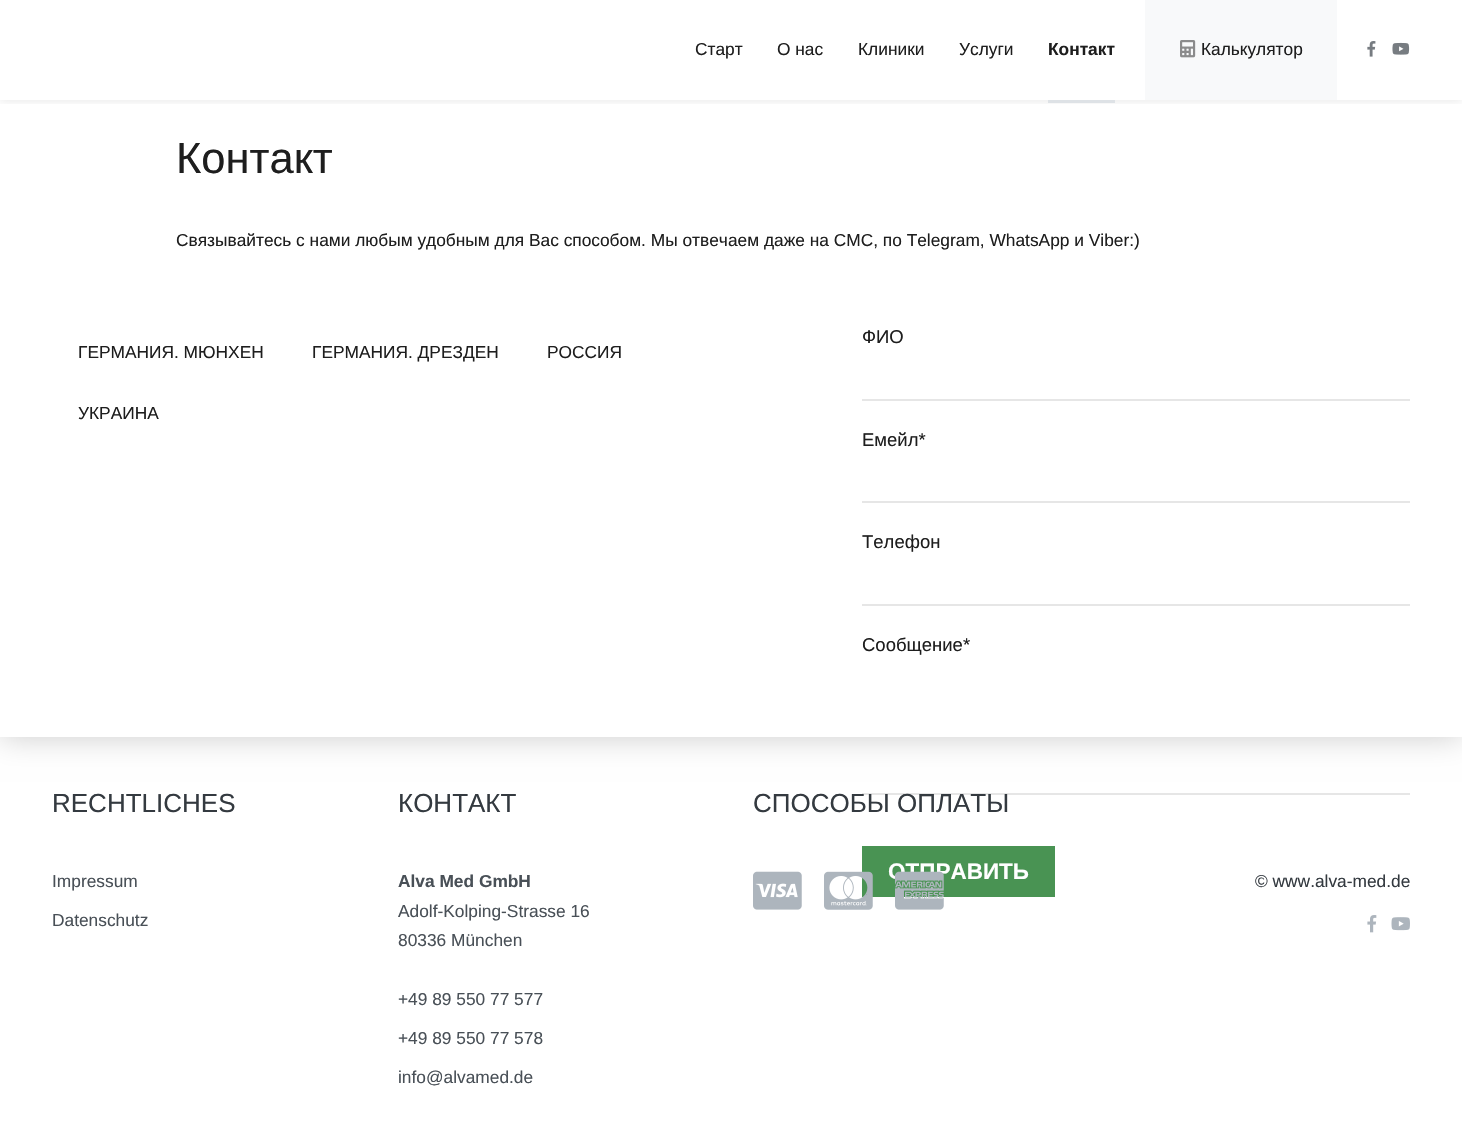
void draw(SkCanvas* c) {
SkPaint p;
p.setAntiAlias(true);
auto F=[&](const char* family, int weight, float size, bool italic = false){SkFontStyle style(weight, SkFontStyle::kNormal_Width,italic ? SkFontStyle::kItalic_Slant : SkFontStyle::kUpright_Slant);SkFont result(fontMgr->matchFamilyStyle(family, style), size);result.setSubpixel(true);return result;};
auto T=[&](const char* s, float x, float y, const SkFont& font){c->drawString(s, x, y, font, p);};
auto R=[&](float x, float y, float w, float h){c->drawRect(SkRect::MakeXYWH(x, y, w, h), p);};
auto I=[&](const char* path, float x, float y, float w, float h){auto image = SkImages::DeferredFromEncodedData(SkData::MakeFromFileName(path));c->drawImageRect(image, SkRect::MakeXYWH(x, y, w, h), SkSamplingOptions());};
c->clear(0xffffffff);
c->save();
c->clipRect(SkRect::MakeXYWH(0,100,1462,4));
p.setColor(0x1a000000);
p.setMaskFilter(SkMaskFilter::MakeBlur(kNormal_SkBlurStyle, 5));
c->drawRect(SkRect::MakeXYWH(0,0,1462,100),p);
p.setMaskFilter(nullptr);
c->restore();
auto f1 = F("Liberation Sans",400,17.33);
p.setColor(0xff1e1e1e);
T("Старт",695,55,f1);
T("О нас",777,55,f1);
T("Клиники",858,55,f1);
T("Услуги",959,55,f1);
auto f2 = F("Liberation Sans",700,17.33);
T("Контакт",1048,55,f2);
p.setColor(0xffdee2e6);
R(1048,100,67,3);
p.setColor(0xfff8f9fa);
R(1145,0,192,100);
I("1.png",1180,40,16,18);
p.setColor(0xff1e1e1e);
T("Калькулятор",1201,55,f1);
I("2.png",1367,41,9,16);
I("3.png",1392,42,18,13);
auto f3 = F("Liberation Sans",400,43.5);
T("Контакт",176,173,f3);
T("Связывайтесь с нами любым удобным для Вас способом. Мы отвечаем даже на СМС, по Telegram, WhatsApp и Viber:)",176,246,f1);
T("ГЕРМАНИЯ. МЮНХЕН",78,358,f1);
T("ГЕРМАНИЯ. ДРЕЗДЕН",312,358,f1);
T("РОССИЯ",547,358,f1);
T("УКРАИНА",78,419,f1);
auto f4 = F("Liberation Sans",400,18.5);
T("ФИО",862,343,f4);
p.setColor(0xffe6e6e6);
R(862,399,548,2);
p.setColor(0xff1e1e1e);
T("Емейл*",862,446,f4);
p.setColor(0xffe6e6e6);
R(862,501,548,2);
p.setColor(0xff1e1e1e);
T("Телефон",862,548,f4);
p.setColor(0xffe6e6e6);
R(862,604,548,2);
p.setColor(0xff1e1e1e);
T("Сообщение*",862,651,f4);
p.setColor(0xffe6e6e6);
R(862,793,548,2);
p.setColor(0xff499353);
R(862,846,193,51);
auto f5 = F("Liberation Sans",700,22.5);
p.setColor(0xffffffff);
T("ОТПРАВИТЬ",888,879,f5);
c->save();
c->clipRect(SkRect::MakeXYWH(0,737,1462,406));
p.setColor(0x33000000);
p.setMaskFilter(SkMaskFilter::MakeBlur(kNormal_SkBlurStyle, 15));
c->drawRect(SkRect::MakeXYWH(0,637,1462,100),p);
p.setMaskFilter(nullptr);
c->restore();
auto f6 = F("Liberation Sans",400,26);
p.setColor(0xff343a40);
T("RECHTLICHES",52,812,f6);
p.setColor(0xff495057);
T("Impressum",52,887,f1);
T("Datenschutz",52,926,f1);
p.setColor(0xff343a40);
T("КОНТАКТ",398,812,f6);
p.setColor(0xff495057);
T("Alva Med GmbH",398,887,f2);
T("Adolf-Kolping-Strasse 16",398,917,f1);
T("80336 München",398,946,f1);
T("+49 89 550 77 577",398,1005,f1);
T("+49 89 550 77 578",398,1044,f1);
T("info@alvamed.de",398,1083,f1);
p.setColor(0xff343a40);
T("СПОСОБЫ ОПЛАТЫ",753,812,f6);
I("4.png",753,871,49,39);
I("5.png",824,871,49,39);
I("6.png",895,871,49,39);
T("© www.alva-med.de",1255,887,f1);
I("7.png",1367,915,10,18);
I("8.png",1391,917,19,14);
}
